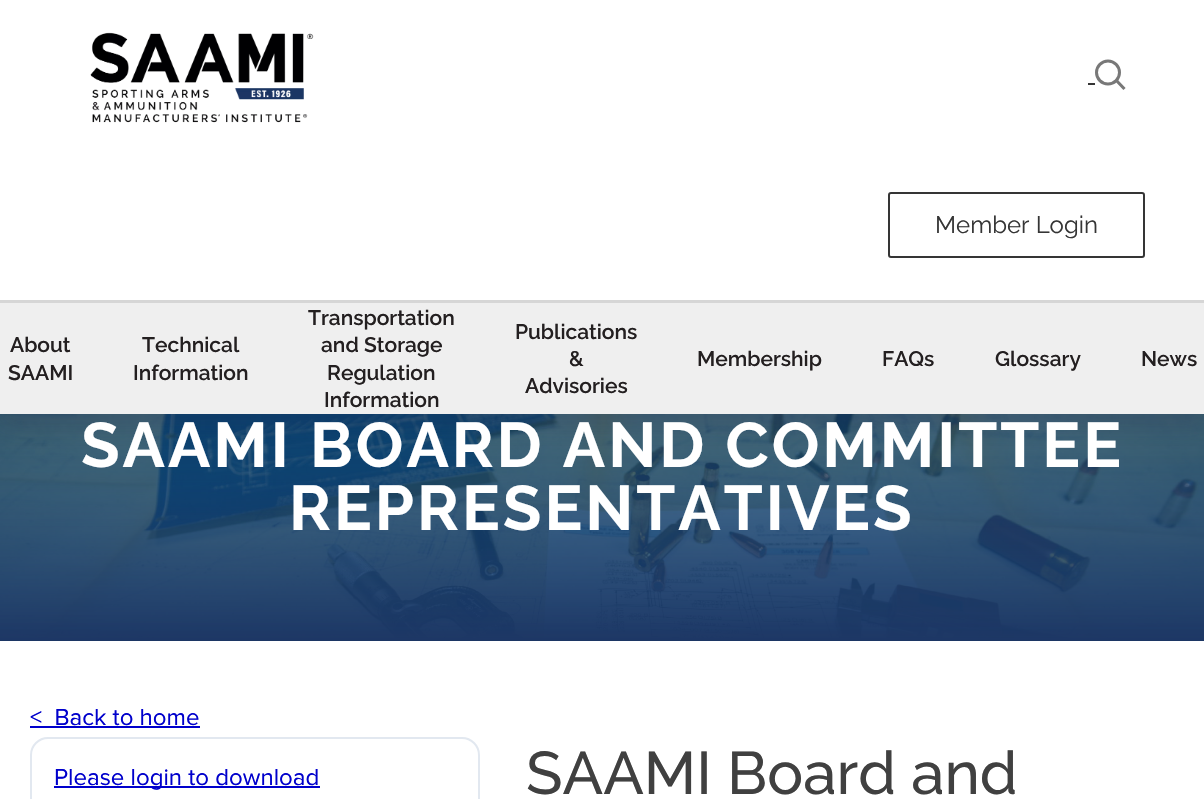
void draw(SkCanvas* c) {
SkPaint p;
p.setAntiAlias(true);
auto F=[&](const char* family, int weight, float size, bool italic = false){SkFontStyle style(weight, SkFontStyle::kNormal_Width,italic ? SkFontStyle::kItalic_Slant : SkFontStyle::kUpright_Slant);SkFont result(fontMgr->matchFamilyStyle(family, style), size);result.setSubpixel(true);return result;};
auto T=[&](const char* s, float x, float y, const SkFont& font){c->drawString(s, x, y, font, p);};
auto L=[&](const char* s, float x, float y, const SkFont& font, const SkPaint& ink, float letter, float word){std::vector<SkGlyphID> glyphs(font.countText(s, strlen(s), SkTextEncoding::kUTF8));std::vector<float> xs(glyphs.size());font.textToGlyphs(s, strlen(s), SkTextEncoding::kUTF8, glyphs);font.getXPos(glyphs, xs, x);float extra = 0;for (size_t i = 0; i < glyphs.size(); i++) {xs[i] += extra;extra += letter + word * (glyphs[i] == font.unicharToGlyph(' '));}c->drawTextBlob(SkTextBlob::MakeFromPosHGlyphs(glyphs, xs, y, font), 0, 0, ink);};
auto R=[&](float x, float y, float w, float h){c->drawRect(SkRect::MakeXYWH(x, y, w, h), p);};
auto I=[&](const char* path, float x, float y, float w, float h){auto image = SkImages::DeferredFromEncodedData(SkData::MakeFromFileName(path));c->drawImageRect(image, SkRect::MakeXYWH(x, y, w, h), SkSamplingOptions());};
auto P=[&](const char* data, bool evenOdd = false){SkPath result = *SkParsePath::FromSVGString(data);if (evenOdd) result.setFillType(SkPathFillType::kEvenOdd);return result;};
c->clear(0xffffffff);
I("2.png",0,414,1204,224);
{
const SkColor colors[] = {0x4d0069b1,0xff1c3664};
const float stops[] = {0,1};
const SkPoint ends[] = {{602,264}, {602,641}};
p.setShader(SkGradientShader::MakeLinear(ends, colors, stops, 2, SkTileMode::kClamp));
p.setAlpha(255);
}
R(0,414,1204,227);
p.setShader(nullptr);
p.setColor(0x30222155);
p.setMaskFilter(SkMaskFilter::MakeBlur(kNormal_SkBlurStyle, 10));
c->drawRect(SkRect::MakeXYWH(0,12,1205,414),p);
p.setMaskFilter(nullptr);
p.setColor(0xffffffff);
R(0,0,1204,300);
I("1.png",90,32,224,91);
p.setColor(0xff353535);
R(1088,83,7,2);
p.setStroke(true);
p.setStrokeWidth(3);
p.setStrokeCap(SkPaint::kSquare_Cap);
p.setColor(0xff787878);
c->drawPath(P("M1123.5 88l-7-7.5"),p);
p.setStrokeCap(SkPaint::kButt_Cap);
c->drawCircle(1108,72.5,11.5,p);
p.setStrokeWidth(2);
p.setColor(0xff353535);
c->drawRoundRect(SkRect::MakeXYWH(889,193,255,64),2,2,p);
auto f1 = F("Raleway",400,24);
p.setStroke(false);
T("Member Login",935,233,f1);
p.setColor(0xffd6d6d6);
R(0,300,1204,3);
p.setColor(0xffefefef);
R(0,303,1204,111);
auto f2 = F("Raleway",600,21);
p.setColor(0xff231f20);
T("About",10,352,f2);
T("SAAMI",8,380,f2);
T("Technical",142,352,f2);
T("Information",133,380,f2);
T("Transportation",308,325,f2);
T("and Storage",321,352,f2);
T("Regulation",327,380,f2);
T("Information",324,407,f2);
T("Publications",515,339,f2);
T("&",569,366,f2);
T("Advisories",525,393,f2);
T("Membership",697,366,f2);
T("FAQs",882,366,f2);
T("Glossary",995,366,f2);
T("News",1141,366,f2);
auto f3 = F("Raleway",700,63);
p.setColor(0xffffffff);
L("SAAMI BOARD AND COMMITTEE",81,467,f3,p,3,0);
L("REPRESENTATIVES",289,530,f3,p,3,0);
auto f4 = F("Proxima Nova",400,24);
p.setColor(0xff0000cc);
T("<  Back to home",30,725,f4);
R(30,726,170,2);
p.setStroke(true);
p.setColor(0xffe2e8f0);
c->drawRoundRect(SkRect::MakeXYWH(31,738,448,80),17,17,p);
p.setStroke(false);
p.setColor(0xff0000cc);
R(54,786,266,2);
T("Please login to download",54,785,f4);
auto f5 = F("Raleway",500,60);
p.setColor(0xff404040);
T("SAAMI Board and",526,794,f5);
}
